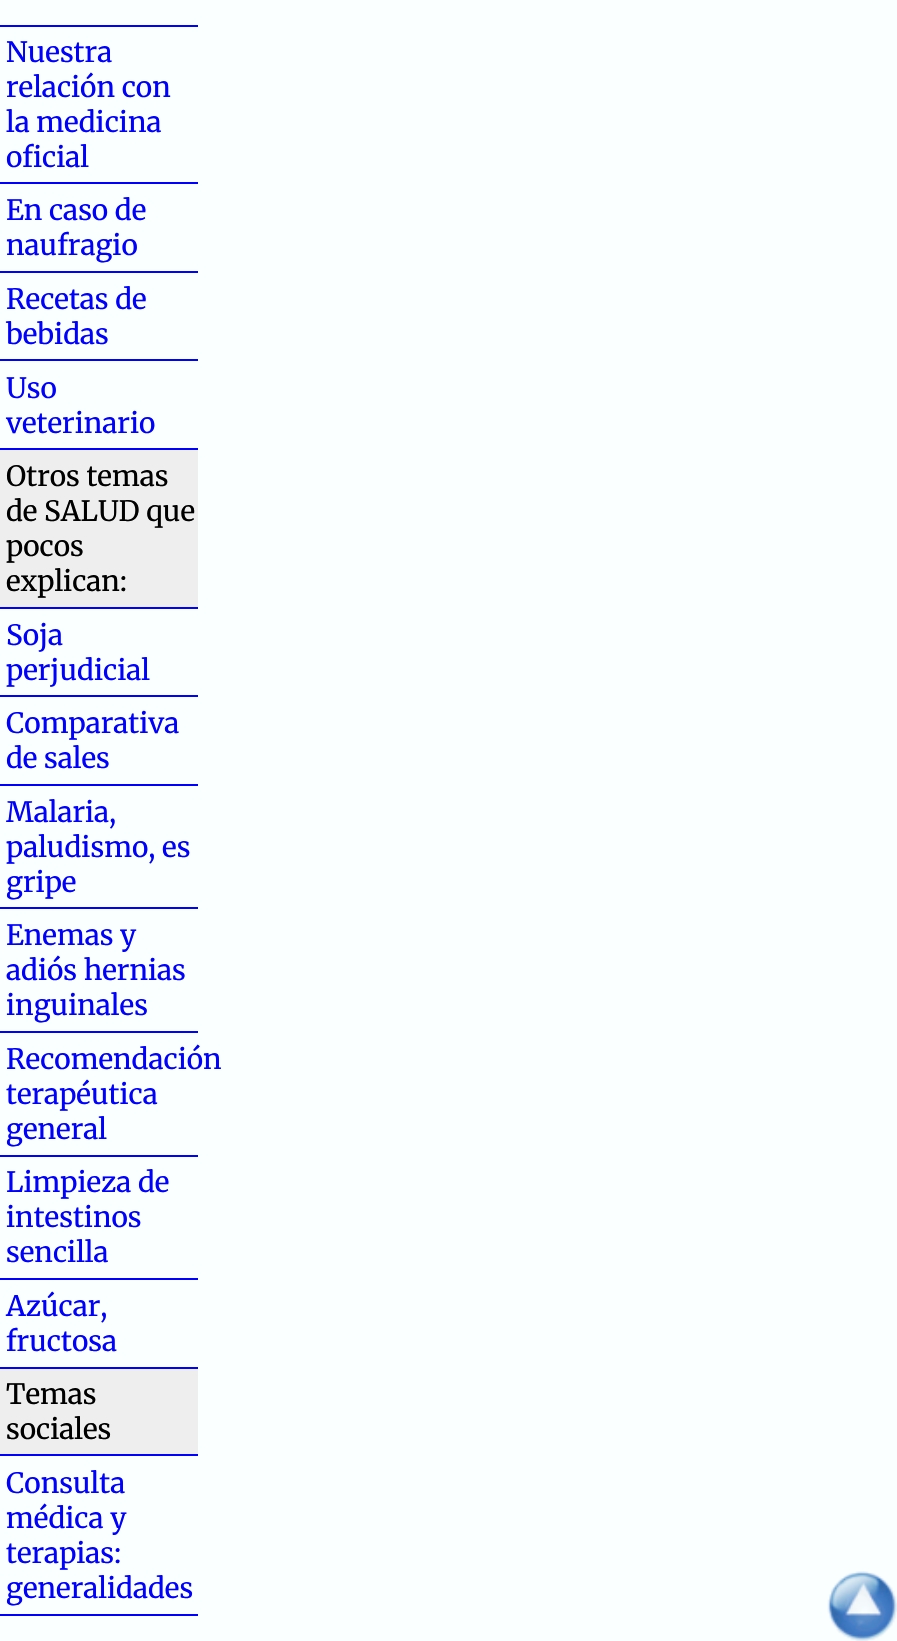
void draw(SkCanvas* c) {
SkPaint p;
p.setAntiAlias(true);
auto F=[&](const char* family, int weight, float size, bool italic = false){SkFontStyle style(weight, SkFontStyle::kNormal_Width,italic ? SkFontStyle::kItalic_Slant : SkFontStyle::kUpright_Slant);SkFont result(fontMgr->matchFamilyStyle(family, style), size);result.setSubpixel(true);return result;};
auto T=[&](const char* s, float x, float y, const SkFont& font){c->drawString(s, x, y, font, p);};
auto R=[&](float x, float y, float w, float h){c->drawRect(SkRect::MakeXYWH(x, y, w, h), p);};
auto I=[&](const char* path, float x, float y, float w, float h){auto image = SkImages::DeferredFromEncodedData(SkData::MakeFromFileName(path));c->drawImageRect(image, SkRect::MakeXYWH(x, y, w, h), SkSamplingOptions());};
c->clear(0xfffaffff);
p.setColor(0xff0000ff);
R(0,25,198,2);
R(0,182,198,2);
auto f1 = F("Merriweather",400,28);
T("Nuestra",6,62,f1);
T("relación con",6,97,f1);
T("la medicina",6,132,f1);
T("oficial",6,167,f1);
R(0,271,198,2);
T("En caso de",6,220,f1);
T("naufragio",6,255,f1);
R(0,359,198,2);
T("Recetas de",6,309,f1);
T("bebidas",6,344,f1);
R(0,448,198,2);
T("Uso",6,398,f1);
T("veterinario",6,433,f1);
p.setColor(0xffeeeeee);
R(0,450,198,157);
p.setColor(0xff0000ff);
R(0,607,198,2);
p.setColor(0xff000000);
T("Otros temas",6,486,f1);
T("de SALUD que",6,521,f1);
T("pocos",6,556,f1);
T("explican:",6,591,f1);
p.setColor(0xff0000ff);
R(0,695,198,2);
T("Soja",6,645,f1);
T("perjudicial",6,680,f1);
R(0,784,198,2);
T("Comparativa",6,733,f1);
T("de sales",6,768,f1);
R(0,907,198,2);
T("Malaria,",6,822,f1);
T("paludismo, es",6,857,f1);
T("gripe",6,892,f1);
R(0,1031,198,2);
T("Enemas y",6,945,f1);
T("adiós hernias",6,980,f1);
T("inguinales",6,1015,f1);
R(0,1155,198,2);
T("Recomendación",6,1069,f1);
T("terapéutica",6,1104,f1);
T("general",6,1139,f1);
R(0,1278,198,2);
T("Limpieza de",6,1192,f1);
T("intestinos",6,1227,f1);
T("sencilla",6,1262,f1);
R(0,1367,198,2);
T("Azúcar,",6,1316,f1);
T("fructosa",6,1351,f1);
p.setColor(0xffeeeeee);
R(0,1369,198,85);
p.setColor(0xff0000ff);
R(0,1454,198,2);
p.setColor(0xff000000);
T("Temas",6,1404,f1);
T("sociales",6,1439,f1);
p.setColor(0xff0000ff);
R(0,1614,198,2);
T("Consulta",6,1493,f1);
T("médica y",6,1528,f1);
T("terapias:",6,1563,f1);
T("generalidades",6,1598,f1);
I("1.png",827,1571,70,70);
}
